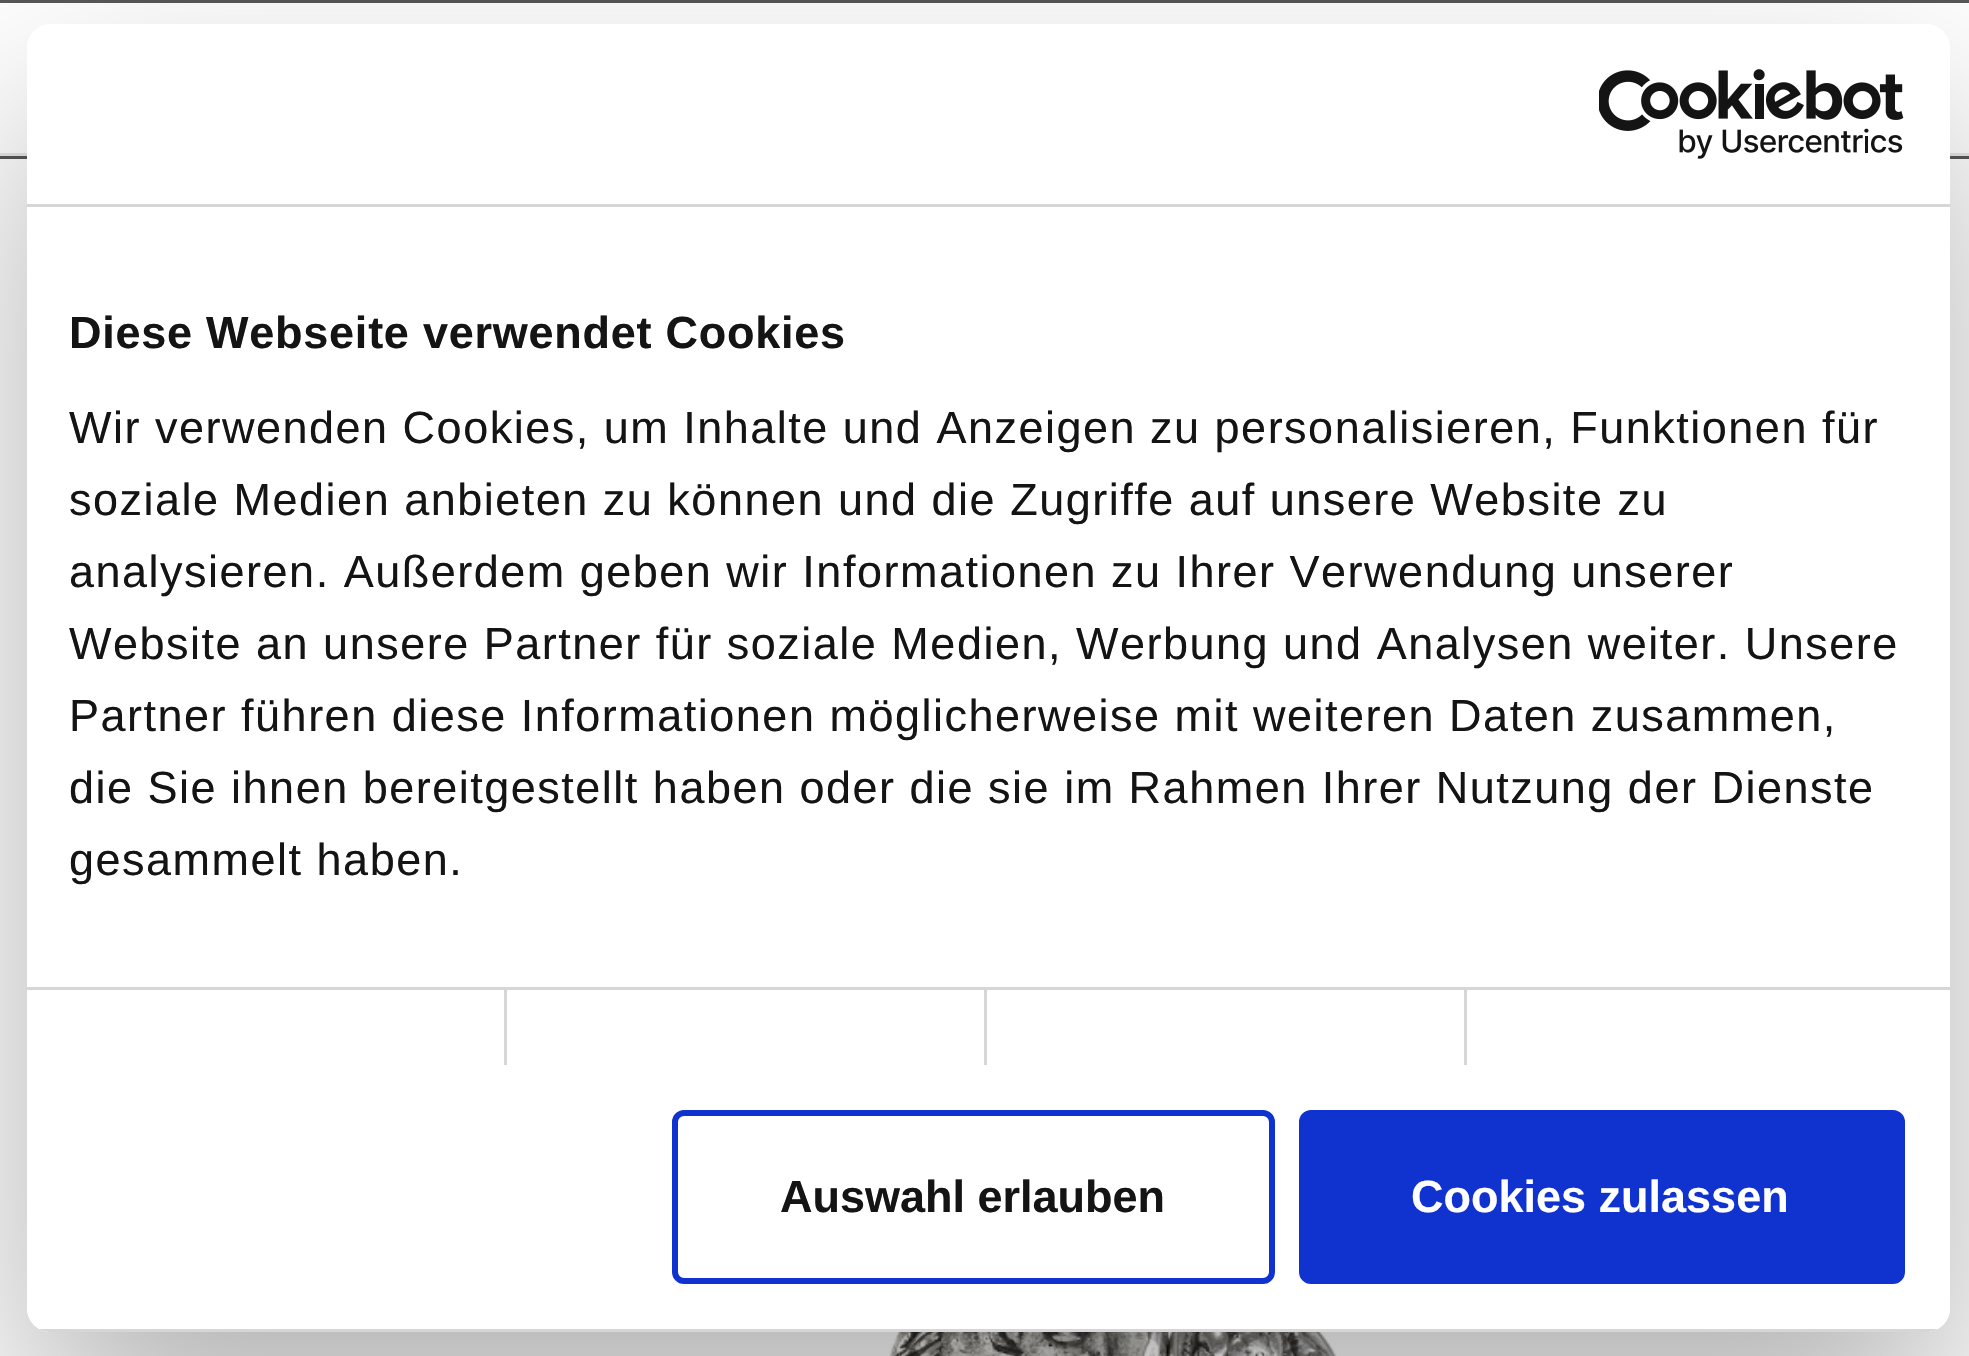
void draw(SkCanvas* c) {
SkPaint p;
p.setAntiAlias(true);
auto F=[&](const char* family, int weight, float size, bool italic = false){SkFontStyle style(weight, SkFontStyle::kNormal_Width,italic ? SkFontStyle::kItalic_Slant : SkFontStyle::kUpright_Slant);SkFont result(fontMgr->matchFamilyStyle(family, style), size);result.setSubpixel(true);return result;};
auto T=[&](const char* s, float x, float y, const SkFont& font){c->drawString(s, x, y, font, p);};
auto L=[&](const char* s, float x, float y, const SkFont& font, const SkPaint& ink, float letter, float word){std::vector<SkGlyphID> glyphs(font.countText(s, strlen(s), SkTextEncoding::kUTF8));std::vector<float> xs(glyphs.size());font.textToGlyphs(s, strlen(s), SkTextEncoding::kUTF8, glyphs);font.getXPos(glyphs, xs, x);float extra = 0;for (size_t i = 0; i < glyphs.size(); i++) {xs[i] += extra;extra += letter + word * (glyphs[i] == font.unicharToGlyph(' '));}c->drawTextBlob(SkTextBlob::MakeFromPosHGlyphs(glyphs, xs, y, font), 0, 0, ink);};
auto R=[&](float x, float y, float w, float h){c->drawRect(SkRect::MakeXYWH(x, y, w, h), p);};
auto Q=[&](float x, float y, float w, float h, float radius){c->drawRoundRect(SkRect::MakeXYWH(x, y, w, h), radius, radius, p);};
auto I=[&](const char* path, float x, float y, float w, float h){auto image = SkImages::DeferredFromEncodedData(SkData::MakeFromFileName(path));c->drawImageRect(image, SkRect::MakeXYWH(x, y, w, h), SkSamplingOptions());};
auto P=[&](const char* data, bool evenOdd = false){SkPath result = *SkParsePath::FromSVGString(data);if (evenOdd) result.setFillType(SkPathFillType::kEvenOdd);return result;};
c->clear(0xffffffff);
p.setColor(0xff565857);
R(0,0,1969,3);
R(0,156,1969,3);
p.setColor(0xffe7e7e7);
R(0,153,1969,3);
I("1.png",889,1332,448,24);
c->save();
c->clipPath(P("M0 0h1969v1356h-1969zm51 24h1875c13.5 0 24 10.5 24 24v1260c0 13.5-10.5 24-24 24h-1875c-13.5 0-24-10.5-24-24v-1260c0-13.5 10.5-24 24-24z",true),true);
p.setColor(0x4d000000);
p.setMaskFilter(SkMaskFilter::MakeBlur(kNormal_SkBlurStyle, 102));
c->drawRoundRect(SkRect::MakeXYWH(27,120,1923,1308),24,24,p);
p.setMaskFilter(nullptr);
c->restore();
p.setColor(0xffffffff);
Q(27,24,1923,1308,24);
p.setColor(0xffd6d6d6);
R(27,204,1923,3);
I("2.png",1599,69,305,90);
R(27,987,1923,3);
auto f1 = F("Liberation Sans",700,45);
p.setColor(0xff141414);
L("Diese Webseite verwendet Cookies",69,348,f1,p,.75,0);
auto f2 = F("Liberation Sans",400,45);
L("Wir verwenden Cookies, um Inhalte und Anzeigen zu personalisieren, Funktionen für",69,443,f2,p,1.5,0);
L("soziale Medien anbieten zu können und die Zugriffe auf unsere Website zu",69,515,f2,p,1.5,0);
L("analysieren. Außerdem geben wir Informationen zu Ihrer Verwendung unserer",69,587,f2,p,1.5,0);
L("Website an unsere Partner für soziale Medien, Werbung und Analysen weiter. Unsere",69,659,f2,p,1.5,0);
L("Partner führen diese Informationen möglicherweise mit weiteren Daten zusammen,",69,731,f2,p,1.5,0);
L("die Sie ihnen bereitgestellt haben oder die sie im Rahmen Ihrer Nutzung der Dienste",69,803,f2,p,1.5,0);
L("gesammelt haben.",69,875,f2,p,1.5,0);
p.setColor(0xffd6d6d6);
R(504,990,3,75);
R(984,990,3,75);
R(1464,990,3,75);
c->save();
c->clipPath(P("M51 24h1875c13.5 0 24 10.5 24 24v1260c0 13.5-10.5 24-24 24h-1875c-13.5 0-24-10.5-24-24v-1260c0-13.5 10.5-24 24-24z"),true);
R(39,1329,1899,3);
c->restore();
p.setStroke(true);
p.setStrokeWidth(6);
p.setColor(0xff1032cf);
c->drawRoundRect(SkRect::MakeXYWH(675,1113,597,168),9,9,p);
p.setStroke(false);
p.setColor(0xff141414);
T("Auswahl erlauben",780,1212,f1);
p.setColor(0xff1032cf);
c->drawRoundRect(SkRect::MakeXYWH(1302,1113,600,168),9,9,p);
p.setStroke(true);
c->drawRoundRect(SkRect::MakeXYWH(1302,1113,600,168),9,9,p);
p.setStroke(false);
p.setColor(0xffffffff);
T("Cookies zulassen",1411,1212,f1);
}
